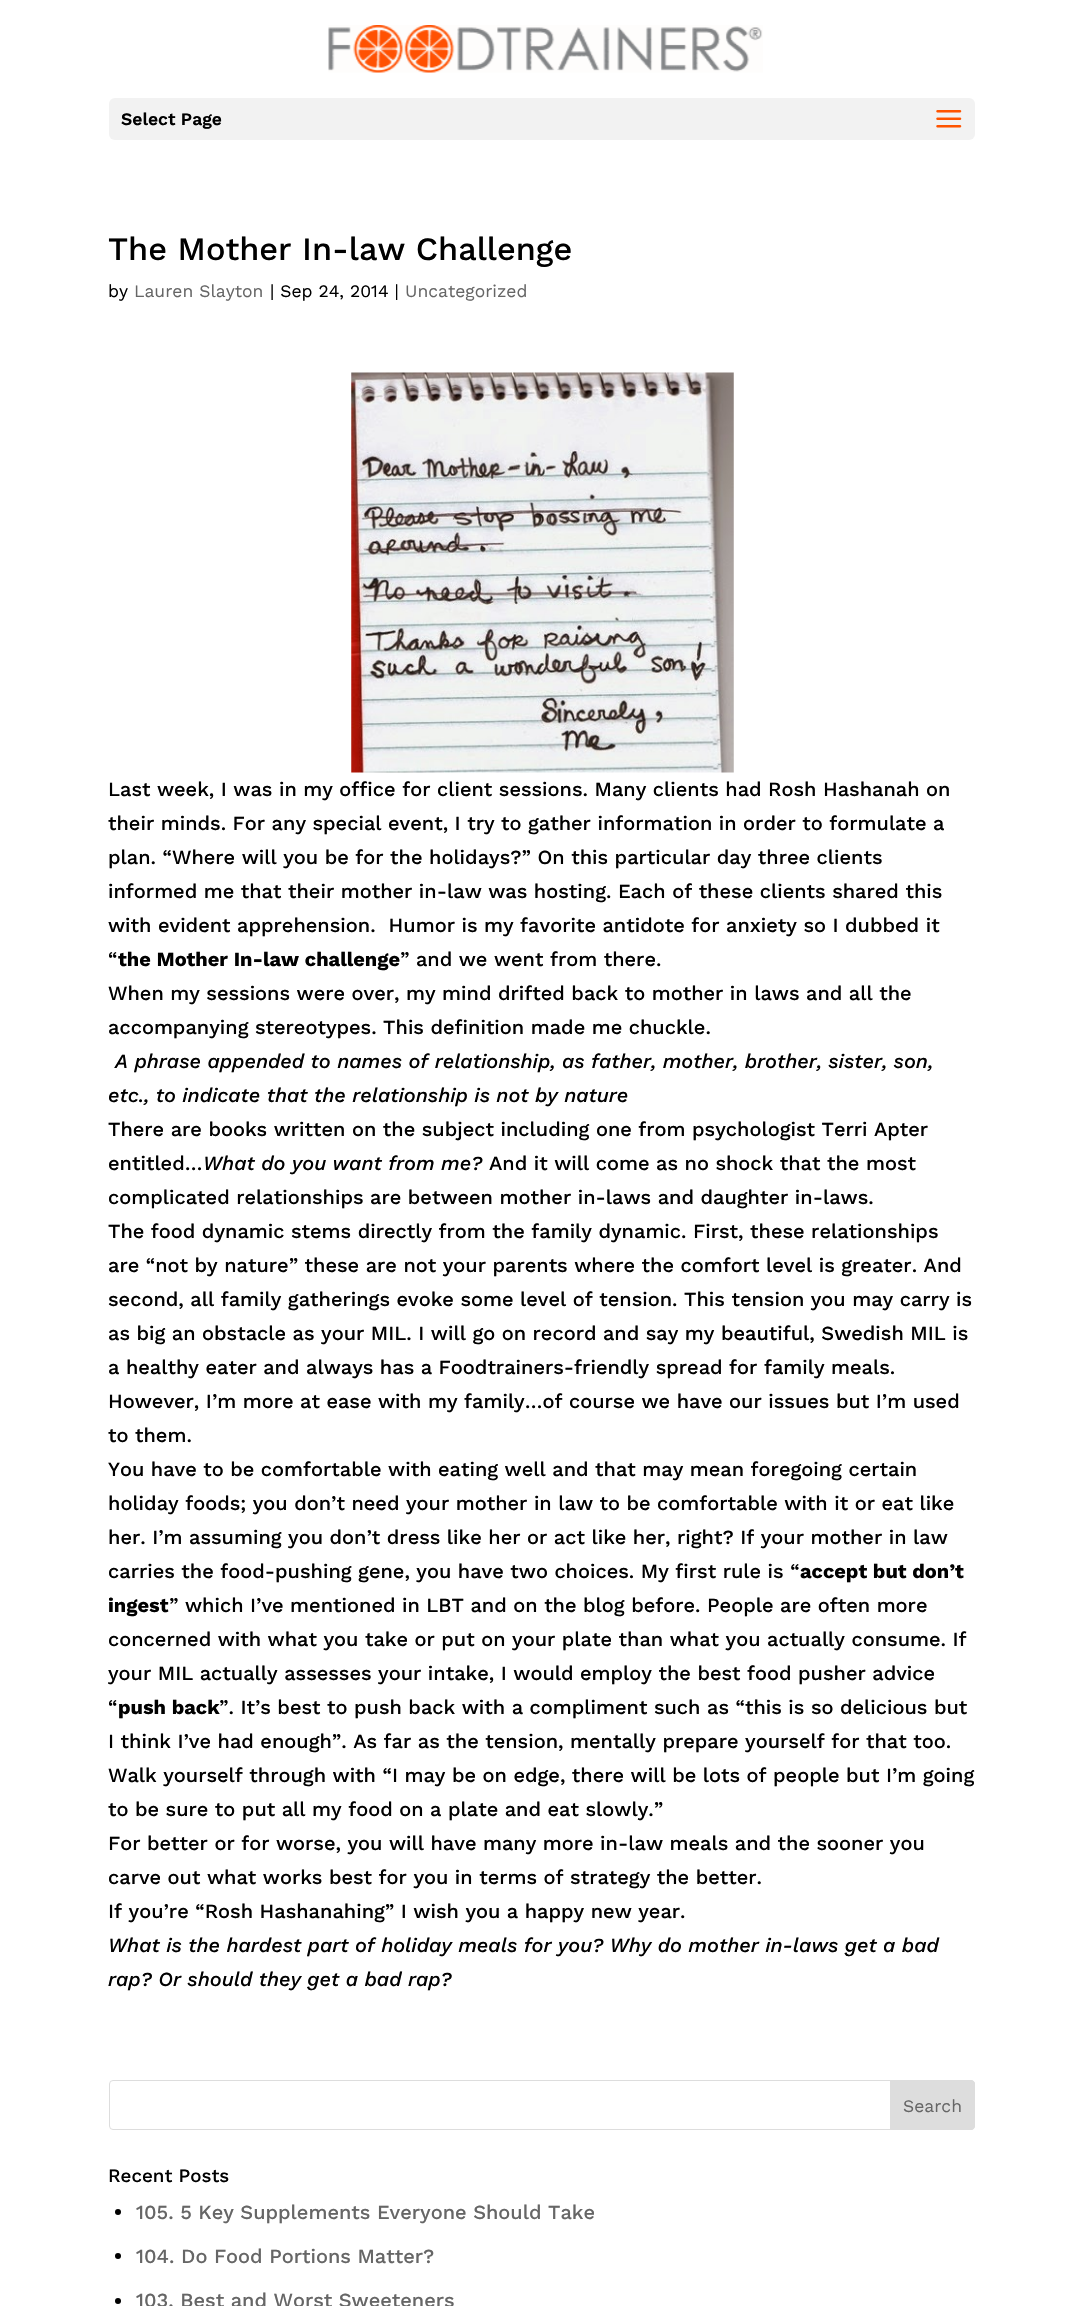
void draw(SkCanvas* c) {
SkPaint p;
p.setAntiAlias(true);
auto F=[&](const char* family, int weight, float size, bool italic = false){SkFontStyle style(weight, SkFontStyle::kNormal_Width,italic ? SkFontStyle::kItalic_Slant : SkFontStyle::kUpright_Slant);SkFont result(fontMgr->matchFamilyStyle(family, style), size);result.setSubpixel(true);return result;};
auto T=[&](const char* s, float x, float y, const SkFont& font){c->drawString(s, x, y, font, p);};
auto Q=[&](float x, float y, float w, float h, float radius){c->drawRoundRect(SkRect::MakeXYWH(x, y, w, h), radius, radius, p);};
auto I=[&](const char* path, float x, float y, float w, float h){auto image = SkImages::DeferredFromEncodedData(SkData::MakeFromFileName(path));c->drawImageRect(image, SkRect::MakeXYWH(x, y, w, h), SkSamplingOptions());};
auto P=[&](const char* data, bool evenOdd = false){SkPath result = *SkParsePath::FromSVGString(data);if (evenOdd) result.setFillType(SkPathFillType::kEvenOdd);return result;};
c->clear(0xffffffff);
I("1.png",328,25,435,48);
p.setColor(0xfff2f2f2);
Q(109,98,866,42,6);
auto f1 = F("Work Sans",600,17.5);
p.setColor(0xff000000);
T("Select Page",121,125,f1);
I("2.png",936,110,26,18);
auto f2 = F("Work Sans",500,32.5);
T("The Mother In-law Challenge",108,260,f2);
auto f3 = F("Work Sans",400,17.5);
T("by",108,297,f3);
p.setColor(0xff666666);
T("Lauren Slayton",134,297,f3);
p.setColor(0xff000000);
T("| Sep 24, 2014 |",270,297,f3);
p.setColor(0xff666666);
T("Uncategorized",405,297,f3);
I("3.png",351,372,383,401);
auto f4 = F("Work Sans",500,20);
p.setColor(0xff000000);
T("Last week, I was in my office for client sessions. Many clients had Rosh Hashanah on",108,796,f4);
T("their minds. For any special event, I try to gather information in order to formulate a",108,830,f4);
T("plan. “Where will you be for the holidays?” On this particular day three clients",108,864,f4);
T("informed me that their mother in-law was hosting. Each of these clients shared this",108,898,f4);
T("with evident apprehension.  Humor is my favorite antidote for anxiety so I dubbed it",108,932,f4);
T("“",108,966,f4);
auto f5 = F("Work Sans",700,20);
T("the Mother In-law challenge",118,966,f5);
T("” and we went from there.",400,966,f4);
T("When my sessions were over, my mind drifted back to mother in laws and all the",108,1000,f4);
T("accompanying stereotypes. This definition made me chuckle.",108,1034,f4);
auto f6 = F("Work Sans",500,20,true);
T("A phrase appended to names of relationship, as father, mother, brother, sister, son,",115,1068,f6);
T("etc., to indicate that the relationship is not by nature",108,1102,f6);
T("There are books written on the subject including one from psychologist Terri Apter",108,1136,f4);
T("entitled…",108,1170,f4);
T("What do you want from me?",203,1170,f6);
T("And it will come as no shock that the most",489,1170,f4);
T("complicated relationships are between mother in-laws and daughter in-laws.",108,1204,f4);
T("The food dynamic stems directly from the family dynamic. First, these relationships",108,1238,f4);
T("are “not by nature” these are not your parents where the comfort level is greater. And",108,1272,f4);
T("second, all family gatherings evoke some level of tension. This tension you may carry is",108,1306,f4);
T("as big an obstacle as your MIL. I will go on record and say my beautiful, Swedish MIL is",108,1340,f4);
T("a healthy eater and always has a Foodtrainers-friendly spread for family meals.",108,1374,f4);
T("However, I’m more at ease with my family…of course we have our issues but I’m used",108,1408,f4);
T("to them.",108,1442,f4);
T("You have to be comfortable with eating well and that may mean foregoing certain",108,1476,f4);
T("holiday foods; you don’t need your mother in law to be comfortable with it or eat like",108,1510,f4);
T("her. I’m assuming you don’t dress like her or act like her, right? If your mother in law",108,1544,f4);
T("carries the food-pushing gene, you have two choices. My first rule is “",108,1578,f4);
T("accept but don’t",800,1578,f5);
T("ingest",108,1612,f5);
T("” which I’ve mentioned in LBT and on the blog before. People are often more",169,1612,f4);
T("concerned with what you take or put on your plate than what you actually consume. If",108,1646,f4);
T("your MIL actually assesses your intake, I would employ the best food pusher advice",108,1680,f4);
T("“",108,1714,f4);
T("push back",118,1714,f5);
T("”. It’s best to push back with a compliment such as “this is so delicious but",219,1714,f4);
T("I think I’ve had enough”. As far as the tension, mentally prepare yourself for that too.",108,1748,f4);
T("Walk yourself through with “I may be on edge, there will be lots of people but I’m going",108,1782,f4);
T("to be sure to put all my food on a plate and eat slowly.”",108,1816,f4);
T("For better or for worse, you will have many more in-law meals and the sooner you",108,1850,f4);
T("carve out what works best for you in terms of strategy the better.",108,1884,f4);
T("If you’re “Rosh Hashanahing” I wish you a happy new year.",108,1918,f4);
T("What is the hardest part of holiday meals for you? Why do mother in-laws get a bad",108,1952,f6);
T("rap? Or should they get a bad rap?",108,1986,f6);
p.setStroke(true);
p.setStrokeWidth(1);
p.setColor(0xffdddddd);
c->drawRoundRect(SkRect::MakeXYWH(109.5,2080.5,865,49),3.5,3.5,p);
p.setStroke(false);
c->drawPath(P("M890.5 2080.5h80.5c2 0 3.5 1.5 3.5 3.5v42c0 2-1.5 3.5-3.5 3.5h-80.5z"),p);
p.setStroke(true);
c->drawPath(P("M890.5 2080.5h80.5c2 0 3.5 1.5 3.5 3.5v42c0 2-1.5 3.5-3.5 3.5h-80.5z"),p);
p.setStroke(false);
p.setColor(0xff666666);
T("Search",903,2112,f3);
auto f7 = F("Work Sans",500,18.75);
p.setColor(0xff000000);
T("Recent Posts",108,2182,f7);
c->drawCircle(118,2212,3,p);
p.setColor(0xff666666);
T("105. 5 Key Supplements Everyone Should Take",136,2219,f4);
p.setColor(0xff000000);
c->drawCircle(118,2256,3,p);
p.setColor(0xff666666);
T("104. Do Food Portions Matter?",136,2263,f4);
p.setColor(0xff000000);
c->drawCircle(118,2301,3,p);
p.setColor(0xff666666);
T("103. Best and Worst Sweeteners",136,2307,f4);
}
